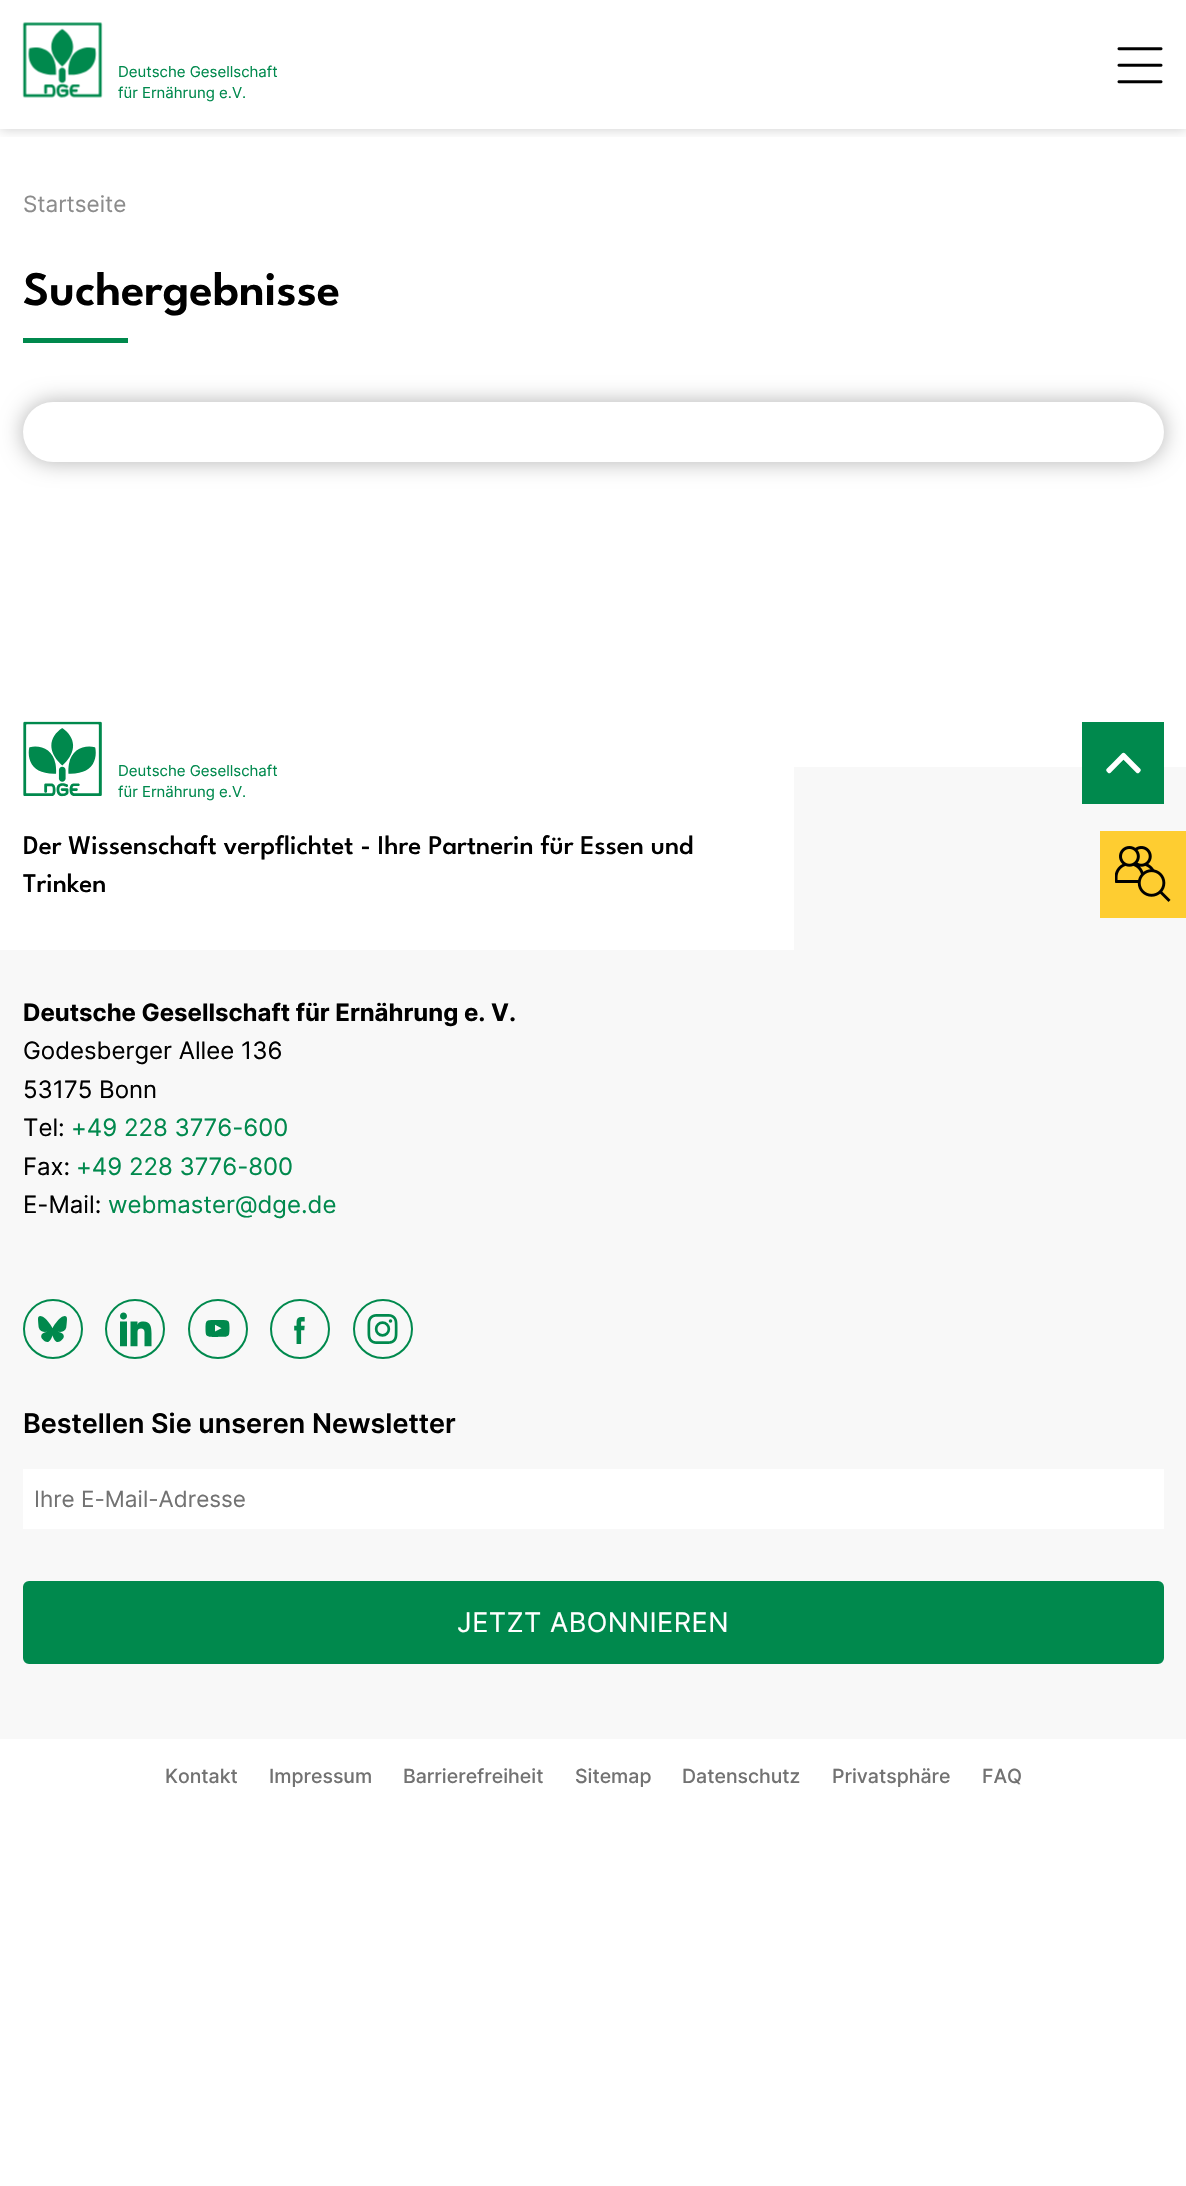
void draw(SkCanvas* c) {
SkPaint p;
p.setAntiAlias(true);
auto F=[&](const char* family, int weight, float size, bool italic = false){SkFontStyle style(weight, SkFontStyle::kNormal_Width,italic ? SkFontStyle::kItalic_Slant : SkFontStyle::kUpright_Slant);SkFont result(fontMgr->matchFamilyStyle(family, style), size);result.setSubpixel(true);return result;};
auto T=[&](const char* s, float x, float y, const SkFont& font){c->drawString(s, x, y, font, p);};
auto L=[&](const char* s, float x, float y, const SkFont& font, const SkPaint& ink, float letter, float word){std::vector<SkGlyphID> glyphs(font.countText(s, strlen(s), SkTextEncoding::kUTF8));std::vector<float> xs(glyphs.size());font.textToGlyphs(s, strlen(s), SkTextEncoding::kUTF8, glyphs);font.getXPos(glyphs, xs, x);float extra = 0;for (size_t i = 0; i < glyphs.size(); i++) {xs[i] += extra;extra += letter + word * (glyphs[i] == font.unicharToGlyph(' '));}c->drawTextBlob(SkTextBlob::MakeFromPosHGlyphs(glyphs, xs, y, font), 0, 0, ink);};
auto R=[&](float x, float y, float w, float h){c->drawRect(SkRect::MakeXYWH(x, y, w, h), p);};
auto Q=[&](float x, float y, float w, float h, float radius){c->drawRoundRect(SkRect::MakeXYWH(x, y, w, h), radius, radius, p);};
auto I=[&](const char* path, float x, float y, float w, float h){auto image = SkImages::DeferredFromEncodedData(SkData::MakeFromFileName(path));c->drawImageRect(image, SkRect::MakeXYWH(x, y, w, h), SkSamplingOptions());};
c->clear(0xffffffff);
c->save();
c->clipRect(SkRect::MakeXYWH(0,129,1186,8));
p.setColor(0x33000000);
p.setMaskFilter(SkMaskFilter::MakeBlur(kNormal_SkBlurStyle, 6));
c->drawRect(SkRect::MakeXYWH(0,0,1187,129),p);
p.setMaskFilter(nullptr);
c->restore();
I("1.png",22,22,81,76);
auto f1 = F("Inter",400,15);
p.setColor(0xff00894d);
T("Deutsche Gesellschaft",118,77,f1);
T("für Ernährung e.V.",118,98,f1);
I("2.png",1117,47,46,37);
auto f2 = F("Inter",400,22.5);
p.setColor(0xff8c8c8c);
T("Startseite",23,212,f2);
auto f3 = F("League Spartan",600,48);
p.setColor(0xff000000);
T("Suchergebnisse",23,305,f3);
p.setColor(0xff00894d);
R(23,338,105,5);
p.setColor(0x4d000000);
p.setMaskFilter(SkMaskFilter::MakeBlur(kNormal_SkBlurStyle, 11));
c->drawRoundRect(SkRect::MakeXYWH(23,402,1141,60),30,30,p);
p.setMaskFilter(nullptr);
p.setColor(0xffffffff);
Q(23,402,1141,60,30);
p.setColor(0xfff8f8f8);
R(0,767,1186,972);
p.setColor(0xfffecd31);
R(1100,831,86,87);
I("3.png",1115,846,56,56);
p.setColor(0xffffffff);
R(0,767,794,183);
I("4.png",23,721,79,76);
p.setColor(0xff00894d);
T("Deutsche Gesellschaft",118,776,f1);
T("für Ernährung e.V.",118,797,f1);
auto f4 = F("League Spartan",500,27);
p.setColor(0xff000000);
T("Der Wissenschaft verpflichtet - Ihre Partnerin für Essen und",23,854,f4);
T("Trinken",23,892,f4);
p.setColor(0xff00894d);
R(1082,722,82,82);
I("5.png",1106,752,35,22);
auto f5 = F("Inter",700,24);
p.setColor(0xff000000);
T("Deutsche Gesellschaft für Ernährung e. V.",23,1021,f5);
auto f6 = F("Inter",400,24);
T("Godesberger Allee 136",23,1059,f6);
T("53175 Bonn",23,1098,f6);
T("Tel:",23,1136,f6);
p.setColor(0xff00894d);
T("+49 228 3776-600",71,1136,f6);
p.setColor(0xff000000);
T("Fax:",23,1175,f6);
p.setColor(0xff00894d);
T("+49 228 3776-800",76,1175,f6);
p.setColor(0xff000000);
T("E-Mail:",23,1213,f6);
p.setColor(0xff00894d);
T("webmaster@dge.de",108,1213,f6);
p.setStroke(true);
p.setStrokeWidth(2);
c->drawCircle(53,1329,29,p);
I("6.png",38,1316,29,26);
c->drawCircle(135,1329,29,p);
I("7.png",120,1312,32,35);
c->drawCircle(218,1329,29,p);
I("8.png",205,1320,25,17);
c->drawCircle(300,1329,29,p);
I("9.png",294,1317,11,27);
c->drawCircle(383,1329,29,p);
I("10.png",367,1314,31,30);
auto f7 = F("Inter",600,27);
p.setStroke(false);
p.setColor(0xff000000);
T("Bestellen Sie unseren Newsletter",23,1433,f7);
p.setColor(0xffffffff);
R(23,1469,1141,60);
p.setColor(0xff727272);
T("Ihre E-Mail-Adresse",34,1507,f2);
p.setColor(0xff00894d);
c->drawRoundRect(SkRect::MakeXYWH(24,1582,1139,81),5,5,p);
p.setStroke(true);
c->drawRoundRect(SkRect::MakeXYWH(24,1582,1139,81),5,5,p);
auto f8 = F("Inter",400,27);
p.setStroke(false);
p.setColor(0xffffffff);
L("JETZT ABONNIEREN",457,1632,f8,p,.5,0);
auto f9 = F("Inter",500,19.5);
p.setColor(0xff727272);
T("Kontakt",165,1783,f9);
T("Impressum",269,1783,f9);
T("Barrierefreiheit",403,1783,f9);
T("Sitemap",575,1783,f9);
T("Datenschutz",682,1783,f9);
T("Privatsphäre",832,1783,f9);
T("FAQ",982,1783,f9);
}
